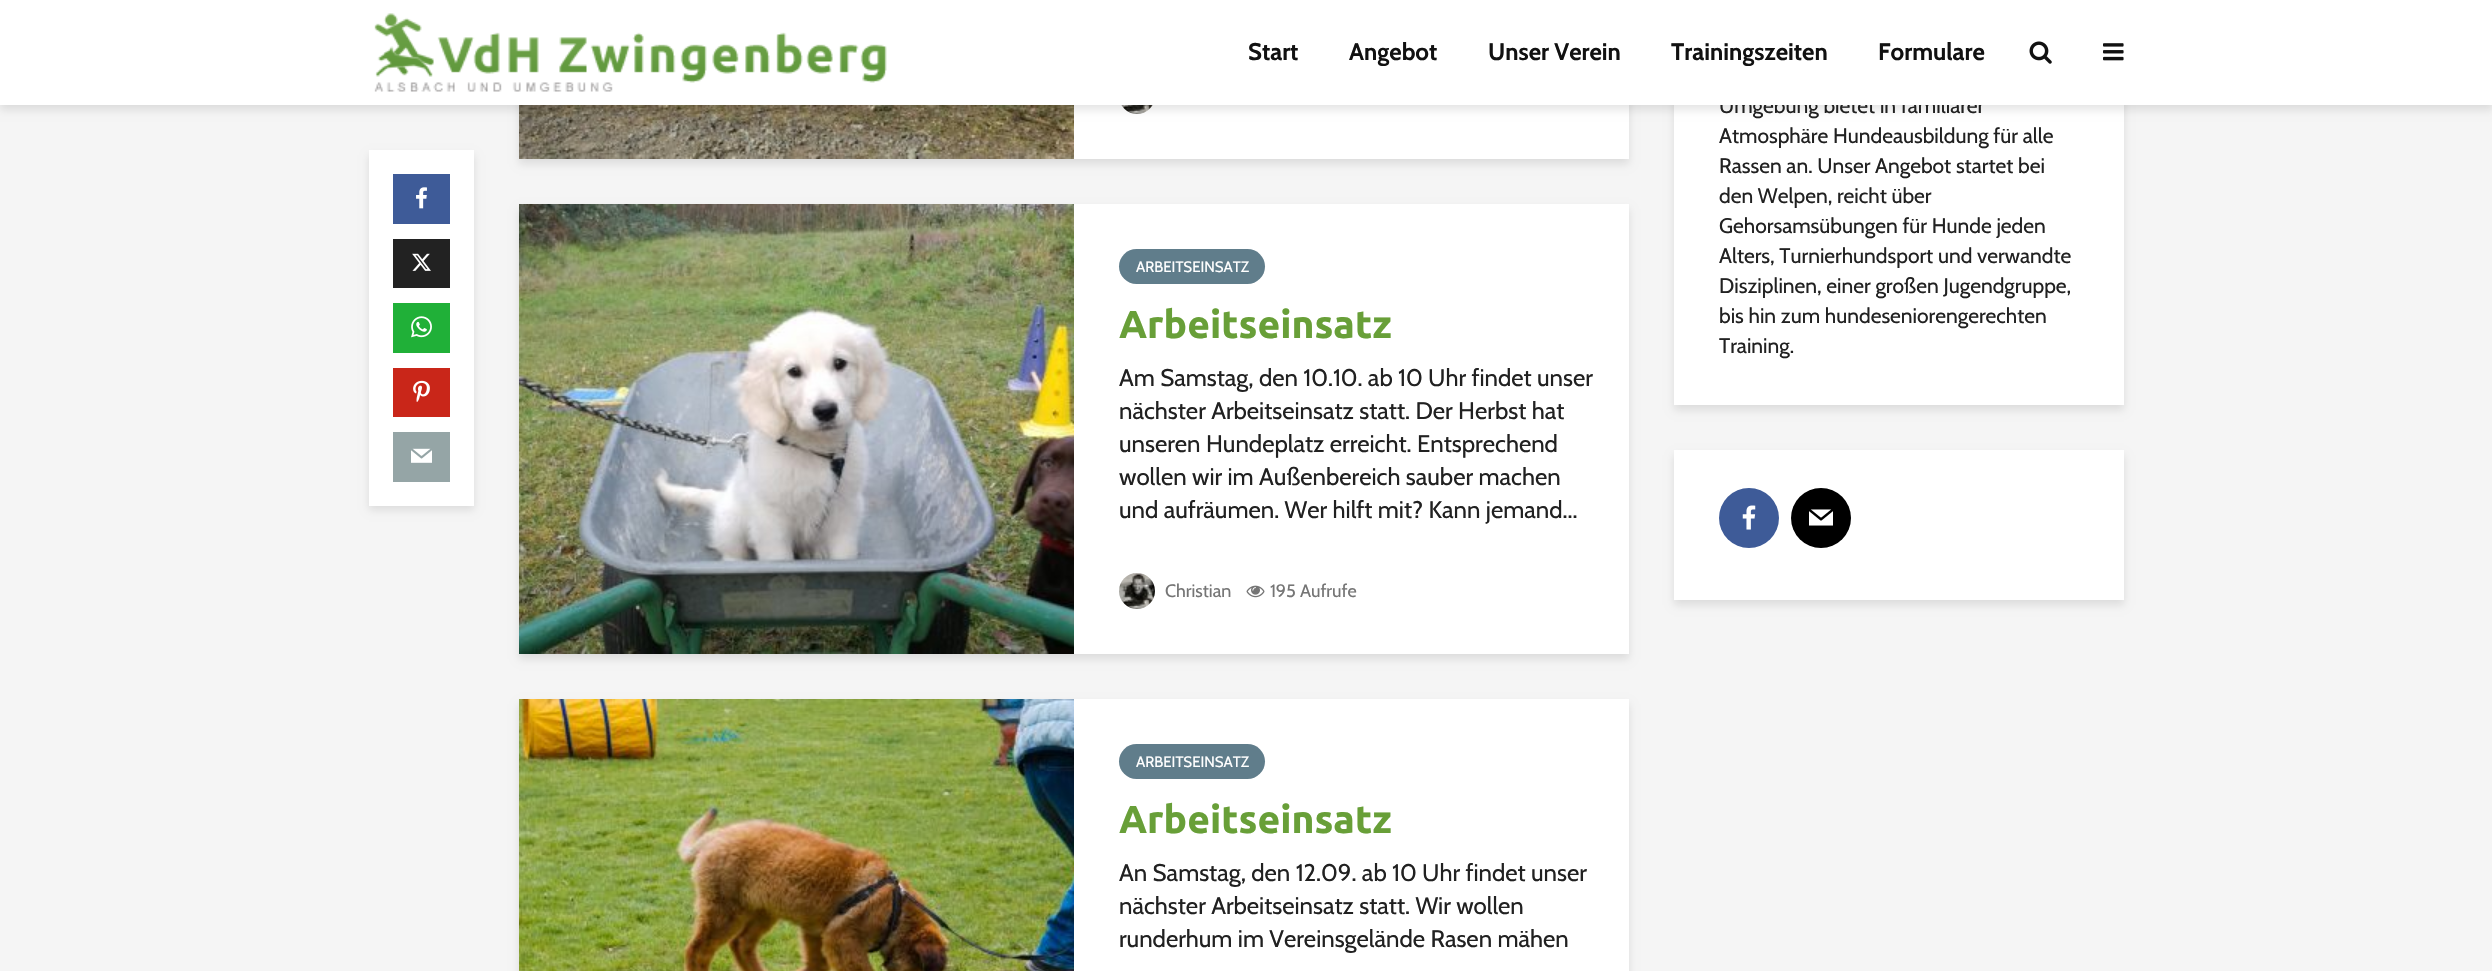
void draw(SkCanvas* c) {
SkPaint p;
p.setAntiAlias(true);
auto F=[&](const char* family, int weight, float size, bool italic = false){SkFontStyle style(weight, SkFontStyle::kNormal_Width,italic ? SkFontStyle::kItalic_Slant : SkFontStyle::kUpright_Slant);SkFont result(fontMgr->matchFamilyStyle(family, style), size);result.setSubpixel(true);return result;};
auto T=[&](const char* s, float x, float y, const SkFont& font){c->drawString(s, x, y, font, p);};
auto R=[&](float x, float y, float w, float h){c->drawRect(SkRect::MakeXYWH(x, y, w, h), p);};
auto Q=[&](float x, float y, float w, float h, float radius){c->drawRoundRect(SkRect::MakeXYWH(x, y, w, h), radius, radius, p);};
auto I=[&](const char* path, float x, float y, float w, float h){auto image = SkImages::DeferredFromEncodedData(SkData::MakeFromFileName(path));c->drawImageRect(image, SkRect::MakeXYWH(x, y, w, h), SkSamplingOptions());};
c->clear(0xfff5f5f5);
p.setColor(0x1a000101);
p.setMaskFilter(SkMaskFilter::MakeBlur(kNormal_SkBlurStyle, 4));
c->drawRect(SkRect::MakeXYWH(519,-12,1110,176),p);
p.setMaskFilter(nullptr);
p.setColor(0xffffffff);
R(1074,105,555,54);
I("9.png",519,105,555,54);
I("10.png",1121,105,32,9);
p.setColor(0x1a000101);
p.setMaskFilter(SkMaskFilter::MakeBlur(kNormal_SkBlurStyle, 4));
c->drawRect(SkRect::MakeXYWH(1674,-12,450,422),p);
p.setMaskFilter(nullptr);
p.setColor(0xffffffff);
R(1674,105,450,300);
p.setColor(0x1a000101);
p.setMaskFilter(SkMaskFilter::MakeBlur(kNormal_SkBlurStyle, 4));
c->drawRect(SkRect::MakeXYWH(0,5,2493,105),p);
p.setMaskFilter(nullptr);
auto f1 = F("Cabin",400,21);
p.setColor(0xff212121);
T("Umgebung bietet in familiärer",1719,113,f1);
p.setColor(0xffffffff);
R(0,0,2492,105);
I("1.png",374,13,513,79);
auto f2 = F("Cabin",700,24);
p.setColor(0xff111111);
T("Start",1248,60,f2);
T("Angebot",1349,60,f2);
T("Unser Verein",1488,60,f2);
T("Trainingszeiten",1671,60,f2);
T("Formulare",1878,60,f2);
I("2.png",2029,41,23,23);
I("3.png",2103,43,21,18);
p.setColor(0x1a000101);
p.setMaskFilter(SkMaskFilter::MakeBlur(kNormal_SkBlurStyle, 4));
c->drawRect(SkRect::MakeXYWH(369,155,105,355),p);
p.setMaskFilter(nullptr);
p.setColor(0xffffffff);
R(369,150,105,356);
p.setColor(0xff3e5b98);
R(393,174,57,50);
I("4.png",416,187,11,22);
p.setColor(0xff222222);
R(393,239,57,49);
I("5.png",412,253,19,18);
p.setColor(0xff20b038);
R(393,303,57,50);
I("6.png",411,316,21,22);
p.setColor(0xffc92619);
R(393,368,57,49);
I("7.png",413,380,17,22);
p.setColor(0xff95a5a6);
R(393,432,57,50);
I("8.png",411,448,21,15);
p.setColor(0x1a000101);
p.setMaskFilter(SkMaskFilter::MakeBlur(kNormal_SkBlurStyle, 4));
c->drawRect(SkRect::MakeXYWH(519,209,1110,450),p);
p.setMaskFilter(nullptr);
p.setColor(0xffffffff);
R(1074,204,555,450);
I("11.png",519,204,555,450);
p.setColor(0xff607d8b);
Q(1119,249,146,35,17.5);
auto f3 = F("Cabin",400,15);
p.setColor(0xffffffff);
T("ARBEITSEINSATZ",1136,272,f3);
auto f4 = F("Ubuntu",700,39);
p.setColor(0xff689f38);
T("Arbeitseinsatz",1119,338,f4);
auto f5 = F("Cabin",400,24);
p.setColor(0xff212121);
T("Am Samstag, den 10.10. ab 10 Uhr findet unser",1119,386,f5);
T("nächster Arbeitseinsatz statt. Der Herbst hat",1119,419,f5);
T("unseren Hundeplatz erreicht. Entsprechend",1119,452,f5);
T("wollen wir im Außenbereich sauber machen",1119,485,f5);
T("und aufräumen. Wer hilft mit? Kann jemand...",1119,518,f5);
I("12.png",1119,573,36,36);
auto f6 = F("Cabin",400,18);
p.setColor(0xff757575);
T("Christian",1165,597,f6);
I("13.png",1246,585,19,13);
T("195 Aufrufe",1270,597,f6);
p.setColor(0x1a000101);
p.setMaskFilter(SkMaskFilter::MakeBlur(kNormal_SkBlurStyle, 4));
c->drawRect(SkRect::MakeXYWH(519,704,1110,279),p);
p.setMaskFilter(nullptr);
p.setColor(0xffffffff);
R(1074,699,555,272);
I("14.png",519,699,555,272);
p.setColor(0xff607d8b);
Q(1119,744,146,35,17.5);
p.setColor(0xffffffff);
T("ARBEITSEINSATZ",1136,767,f3);
p.setColor(0xff689f38);
T("Arbeitseinsatz",1119,833,f4);
p.setColor(0xff212121);
T("An Samstag, den 12.09. ab 10 Uhr findet unser",1119,881,f5);
T("nächster Arbeitseinsatz statt. Wir wollen",1119,914,f5);
T("runderhum im Vereinsgelände Rasen mähen",1119,947,f5);
T("Atmosphäre Hundeausbildung für alle",1719,143,f1);
T("Rassen an. Unser Angebot startet bei",1719,173,f1);
T("den Welpen, reicht über",1719,203,f1);
T("Gehorsamsübungen für Hunde jeden",1719,233,f1);
T("Alters, Turnierhundsport und verwandte",1719,263,f1);
T("Disziplinen, einer großen Jugendgruppe,",1719,293,f1);
T("bis hin zum hundeseniorengerechten",1719,323,f1);
T("Training.",1719,353,f1);
p.setColor(0x1a000101);
p.setMaskFilter(SkMaskFilter::MakeBlur(kNormal_SkBlurStyle, 4));
c->drawRect(SkRect::MakeXYWH(1674,455,450,150),p);
p.setMaskFilter(nullptr);
p.setColor(0xffffffff);
R(1674,450,450,150);
p.setColor(0xff3e5b98);
c->drawCircle(1749,518,30,p);
I("15.png",1742,505,14,25);
p.setColor(0xff000000);
c->drawCircle(1821,518,30,p);
I("16.png",1809,509,24,17);
}
